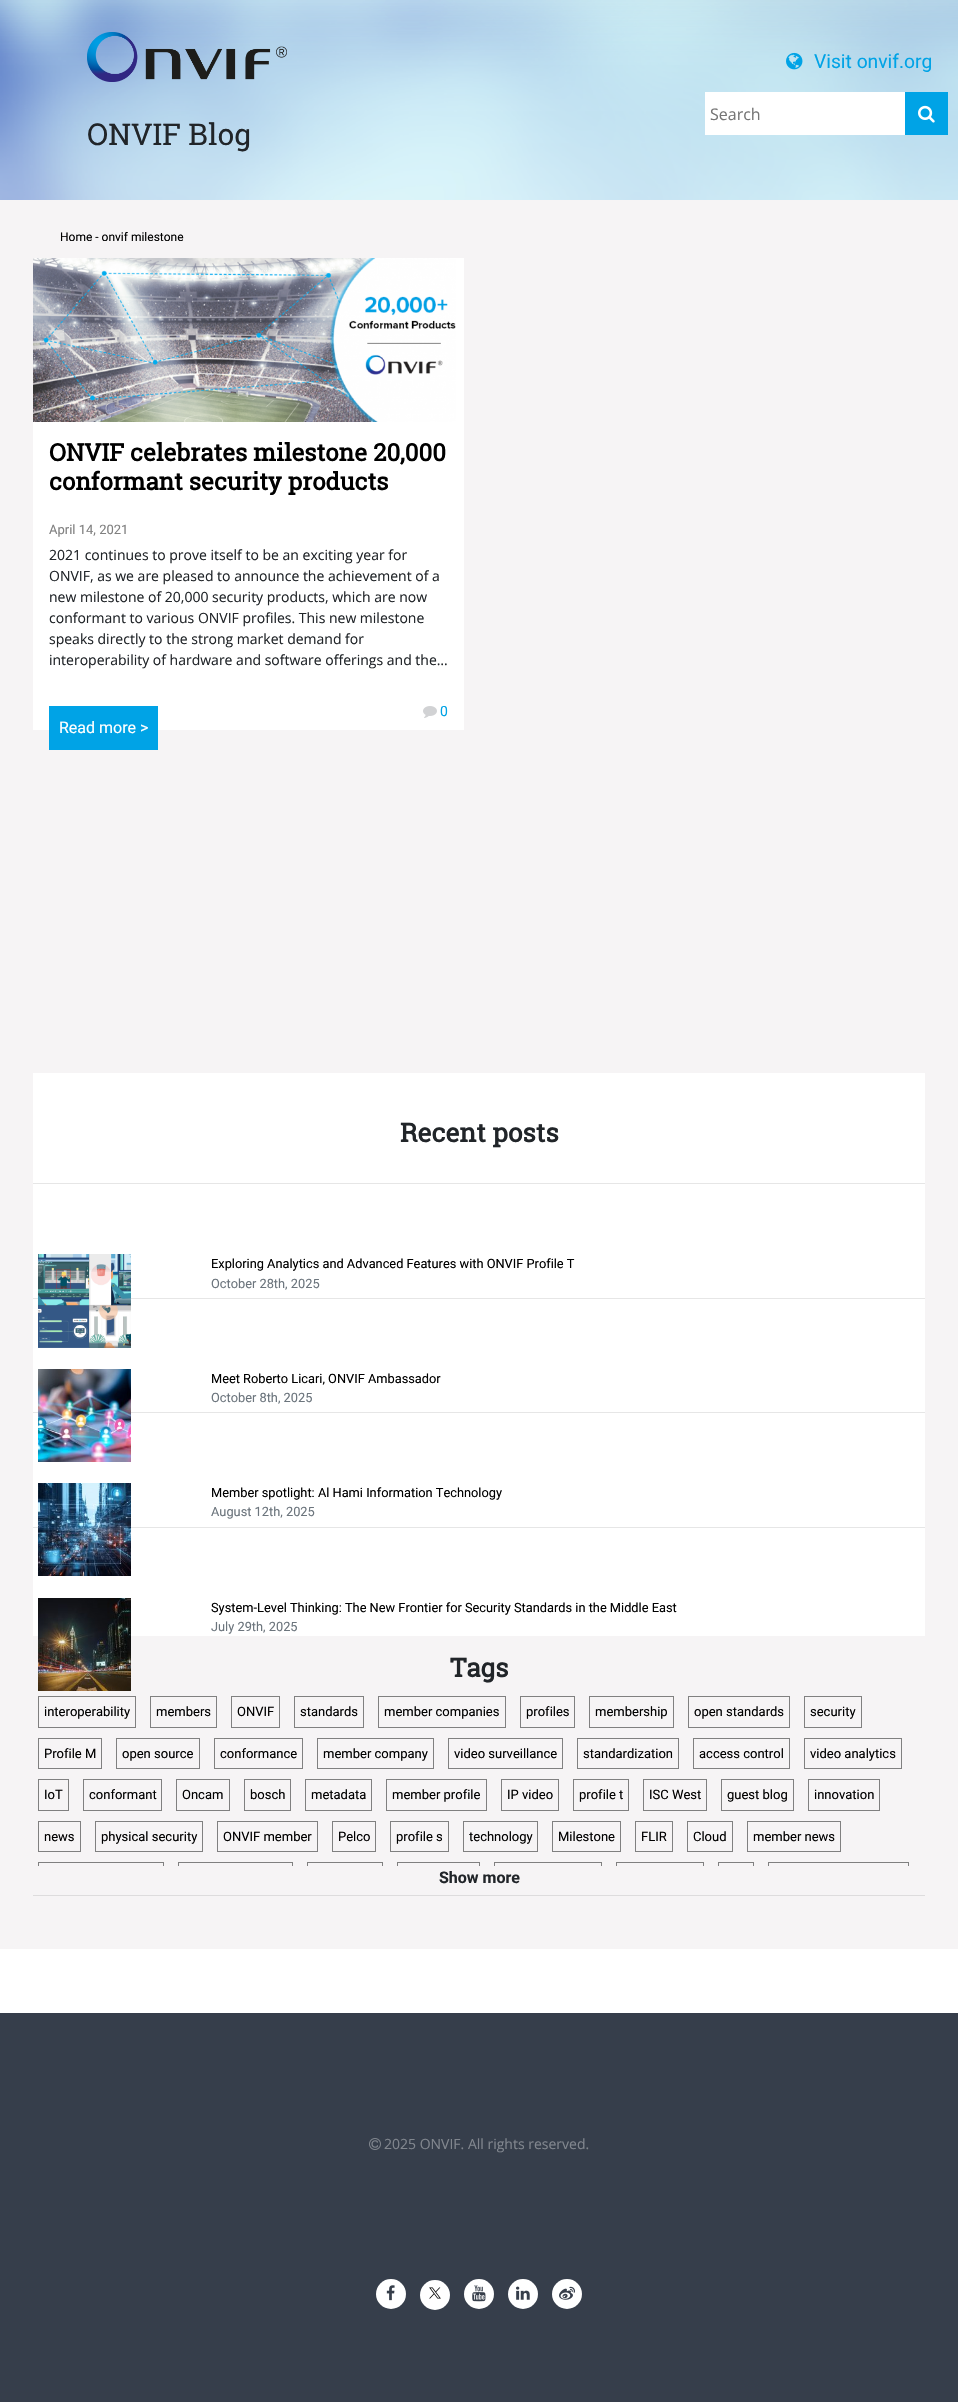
void draw(SkCanvas* c) {
SkPaint p;
p.setAntiAlias(true);
auto F=[&](const char* family, int weight, float size, bool italic = false){SkFontStyle style(weight, SkFontStyle::kNormal_Width,italic ? SkFontStyle::kItalic_Slant : SkFontStyle::kUpright_Slant);SkFont result(fontMgr->matchFamilyStyle(family, style), size);result.setSubpixel(true);return result;};
auto T=[&](const char* s, float x, float y, const SkFont& font){c->drawString(s, x, y, font, p);};
auto R=[&](float x, float y, float w, float h){c->drawRect(SkRect::MakeXYWH(x, y, w, h), p);};
auto I=[&](const char* path, float x, float y, float w, float h){auto image = SkImages::DeferredFromEncodedData(SkData::MakeFromFileName(path));c->drawImageRect(image, SkRect::MakeXYWH(x, y, w, h), SkSamplingOptions());};
c->clear(0xffffffff);
I("1.png",0,0,958,200);
I("2.png",87,32,200,50);
I("3.png",786,52,17,18);
auto f1 = F("Roboto",400,19.25);
p.setColor(0xff00a3e6);
T("Visit onvif.org",814,68,f1);
p.setColor(0xffffffff);
R(705,92,200,43);
auto f2 = F("Open Sans",400,16);
p.setColor(0xff757575);
T("Search",710,120,f2);
p.setColor(0xff00a3e6);
R(905,92,43,43);
I("4.png",918,105,17,18);
auto f3 = F("Roboto Slab",400,30);
p.setColor(0xff212529);
T("ONVIF Blog",87,145,f3);
p.setColor(0xfff6f4f5);
R(0,200,958,1749);
auto f4 = F("Roboto",400,12);
p.setColor(0xff000000);
T("Home - onvif milestone",60,241,f4);
p.setColor(0xffffffff);
R(33,258,431,472);
I("5.png",33,258,423,164);
auto f5 = F("Roboto Slab",700,24);
p.setColor(0xff000000);
T("ONVIF celebrates milestone 20,000",49,461,f5);
T("conformant security products",49,490,f5);
auto f6 = F("Roboto",400,13);
p.setColor(0xff808080);
T("April 14, 2021",49,534,f6);
auto f7 = F("Open Sans",400,14);
p.setColor(0xff212529);
T("2021 continues to prove itself to be an exciting year for",49,560,f7);
T("ONVIF, as we are pleased to announce the achievement of a",49,581,f7);
T("new milestone of 20,000 security products, which are now",49,602,f7);
T("conformant to various ONVIF profiles. This new milestone",49,623,f7);
T("speaks directly to the strong market demand for",49,644,f7);
T("interoperability of hardware and software offerings and the…",49,665,f7);
I("6.png",423,706,14,12);
auto f8 = F("Roboto",400,14);
p.setColor(0xff00a3e6);
T("0",440,716,f8);
R(49,706,109,44);
auto f9 = F("Roboto",400,16);
p.setColor(0xffffffff);
T("Read more >",59,733,f9);
R(33,1073,892,563);
auto f10 = F("Roboto Slab",700,26);
p.setColor(0xff212529);
T("Recent posts",400,1142,f10);
p.setColor(0xffe6e6e6);
R(33,1183,892,1);
R(33,1298,892,1);
I("7.png",38,1254,93,94);
auto f11 = F("Roboto",400,12.8);
p.setColor(0xff000000);
T("Exploring Analytics and Advanced Features with ONVIF Profile T",211,1268,f11);
p.setColor(0xff6c757d);
T("October 28th, 2025",211,1288,f11);
p.setColor(0xffe6e6e6);
R(33,1412,892,1);
I("8.png",38,1369,93,93);
p.setColor(0xff000000);
T("Meet Roberto Licari, ONVIF Ambassador",211,1383,f11);
p.setColor(0xff6c757d);
T("October 8th, 2025",211,1402,f11);
p.setColor(0xffe6e6e6);
R(33,1527,892,1);
I("9.png",38,1483,93,93);
p.setColor(0xff000000);
T("Member spotlight: Al Hami Information Technology",211,1497,f11);
p.setColor(0xff6c757d);
T("August 12th, 2025",211,1516,f11);
I("10.png",38,1598,93,93);
p.setColor(0xff000000);
T("System-Level Thinking: The New Frontier for Security Standards in the Middle East",211,1612,f11);
p.setColor(0xff6c757d);
T("July 29th, 2025",211,1631,f11);
p.setColor(0xff212529);
T("Tags",450,1677,f10);
p.setStroke(true);
p.setStrokeWidth(1);
p.setColor(0xff808080);
c->drawRect(SkRect::MakeXYWH(38.5,1696.5,97,31),p);
p.setStroke(false);
p.setColor(0xff000000);
T("interoperability",44,1716,f6);
p.setStroke(true);
p.setColor(0xff808080);
c->drawRect(SkRect::MakeXYWH(150.5,1696.5,66,31),p);
p.setStroke(false);
p.setColor(0xff000000);
T("members",156,1716,f6);
p.setStroke(true);
p.setColor(0xff808080);
c->drawRect(SkRect::MakeXYWH(231.5,1696.5,48,31),p);
p.setStroke(false);
p.setColor(0xff000000);
T("ONVIF",237,1716,f6);
p.setStroke(true);
p.setColor(0xff808080);
c->drawRect(SkRect::MakeXYWH(294.5,1696.5,69,31),p);
p.setStroke(false);
p.setColor(0xff000000);
T("standards",300,1716,f6);
p.setStroke(true);
p.setColor(0xff808080);
c->drawRect(SkRect::MakeXYWH(378.5,1696.5,127,31),p);
p.setStroke(false);
p.setColor(0xff000000);
T("member companies",384,1716,f6);
p.setStroke(true);
p.setColor(0xff808080);
c->drawRect(SkRect::MakeXYWH(520.5,1696.5,54,31),p);
p.setStroke(false);
p.setColor(0xff000000);
T("profiles",526,1716,f6);
p.setStroke(true);
p.setColor(0xff808080);
c->drawRect(SkRect::MakeXYWH(589.5,1696.5,84,31),p);
p.setStroke(false);
p.setColor(0xff000000);
T("membership",595,1716,f6);
p.setStroke(true);
p.setColor(0xff808080);
c->drawRect(SkRect::MakeXYWH(688.5,1696.5,101,31),p);
p.setStroke(false);
p.setColor(0xff000000);
T("open standards",694,1716,f6);
p.setStroke(true);
p.setColor(0xff808080);
c->drawRect(SkRect::MakeXYWH(804.5,1696.5,57,31),p);
p.setStroke(false);
p.setColor(0xff000000);
T("security",810,1716,f6);
p.setStroke(true);
p.setColor(0xff808080);
c->drawRect(SkRect::MakeXYWH(38.5,1738.5,63,30),p);
p.setStroke(false);
p.setColor(0xff000000);
T("Profile M",44,1758,f6);
p.setStroke(true);
p.setColor(0xff808080);
c->drawRect(SkRect::MakeXYWH(116.5,1738.5,83,30),p);
p.setStroke(false);
p.setColor(0xff000000);
T("open source",122,1758,f6);
p.setStroke(true);
p.setColor(0xff808080);
c->drawRect(SkRect::MakeXYWH(214.5,1738.5,88,30),p);
p.setStroke(false);
p.setColor(0xff000000);
T("conformance",220,1758,f6);
p.setStroke(true);
p.setColor(0xff808080);
c->drawRect(SkRect::MakeXYWH(317.5,1738.5,116,30),p);
p.setStroke(false);
p.setColor(0xff000000);
T("member company",323,1758,f6);
p.setStroke(true);
p.setColor(0xff808080);
c->drawRect(SkRect::MakeXYWH(448.5,1738.5,114,30),p);
p.setStroke(false);
p.setColor(0xff000000);
T("video surveillance",454,1758,f6);
p.setStroke(true);
p.setColor(0xff808080);
c->drawRect(SkRect::MakeXYWH(577.5,1738.5,101,30),p);
p.setStroke(false);
p.setColor(0xff000000);
T("standardization",583,1758,f6);
p.setStroke(true);
p.setColor(0xff808080);
c->drawRect(SkRect::MakeXYWH(693.5,1738.5,96,30),p);
p.setStroke(false);
p.setColor(0xff000000);
T("access control",699,1758,f6);
p.setStroke(true);
p.setColor(0xff808080);
c->drawRect(SkRect::MakeXYWH(804.5,1738.5,97,30),p);
p.setStroke(false);
p.setColor(0xff000000);
T("video analytics",810,1758,f6);
p.setStroke(true);
p.setColor(0xff808080);
c->drawRect(SkRect::MakeXYWH(38.5,1779.5,30,31),p);
p.setStroke(false);
p.setColor(0xff000000);
T("IoT",44,1799,f6);
p.setStroke(true);
p.setColor(0xff808080);
c->drawRect(SkRect::MakeXYWH(83.5,1779.5,78,31),p);
p.setStroke(false);
p.setColor(0xff000000);
T("conformant",89,1799,f6);
p.setStroke(true);
p.setColor(0xff808080);
c->drawRect(SkRect::MakeXYWH(176.5,1779.5,53,31),p);
p.setStroke(false);
p.setColor(0xff000000);
T("Oncam",182,1799,f6);
p.setStroke(true);
p.setColor(0xff808080);
c->drawRect(SkRect::MakeXYWH(244.5,1779.5,46,31),p);
p.setStroke(false);
p.setColor(0xff000000);
T("bosch",250,1799,f6);
p.setStroke(true);
p.setColor(0xff808080);
c->drawRect(SkRect::MakeXYWH(305.5,1779.5,66,31),p);
p.setStroke(false);
p.setColor(0xff000000);
T("metadata",311,1799,f6);
p.setStroke(true);
p.setColor(0xff808080);
c->drawRect(SkRect::MakeXYWH(386.5,1779.5,100,31),p);
p.setStroke(false);
p.setColor(0xff000000);
T("member profile",392,1799,f6);
p.setStroke(true);
p.setColor(0xff808080);
c->drawRect(SkRect::MakeXYWH(501.5,1779.5,57,31),p);
p.setStroke(false);
p.setColor(0xff000000);
T("IP video",507,1799,f6);
p.setStroke(true);
p.setColor(0xff808080);
c->drawRect(SkRect::MakeXYWH(573.5,1779.5,55,31),p);
p.setStroke(false);
p.setColor(0xff000000);
T("profile t",579,1799,f6);
p.setStroke(true);
p.setColor(0xff808080);
c->drawRect(SkRect::MakeXYWH(643.5,1779.5,63,31),p);
p.setStroke(false);
p.setColor(0xff000000);
T("ISC West",649,1799,f6);
p.setStroke(true);
p.setColor(0xff808080);
c->drawRect(SkRect::MakeXYWH(721.5,1779.5,72,31),p);
p.setStroke(false);
p.setColor(0xff000000);
T("guest blog",727,1799,f6);
p.setStroke(true);
p.setColor(0xff808080);
c->drawRect(SkRect::MakeXYWH(808.5,1779.5,71,31),p);
p.setStroke(false);
p.setColor(0xff000000);
T("innovation",814,1799,f6);
p.setStroke(true);
p.setColor(0xff808080);
c->drawRect(SkRect::MakeXYWH(38.5,1821.5,42,30),p);
p.setStroke(false);
p.setColor(0xff000000);
T("news",44,1841,f6);
p.setStroke(true);
p.setColor(0xff808080);
c->drawRect(SkRect::MakeXYWH(95.5,1821.5,107,30),p);
p.setStroke(false);
p.setColor(0xff000000);
T("physical security",101,1841,f6);
p.setStroke(true);
p.setColor(0xff808080);
c->drawRect(SkRect::MakeXYWH(217.5,1821.5,100,30),p);
p.setStroke(false);
p.setColor(0xff000000);
T("ONVIF member",223,1841,f6);
p.setStroke(true);
p.setColor(0xff808080);
c->drawRect(SkRect::MakeXYWH(332.5,1821.5,43,30),p);
p.setStroke(false);
p.setColor(0xff000000);
T("Pelco",338,1841,f6);
p.setStroke(true);
p.setColor(0xff808080);
c->drawRect(SkRect::MakeXYWH(390.5,1821.5,58,30),p);
p.setStroke(false);
p.setColor(0xff000000);
T("profile s",396,1841,f6);
p.setStroke(true);
p.setColor(0xff808080);
c->drawRect(SkRect::MakeXYWH(463.5,1821.5,74,30),p);
p.setStroke(false);
p.setColor(0xff000000);
T("technology",469,1841,f6);
p.setStroke(true);
p.setColor(0xff808080);
c->drawRect(SkRect::MakeXYWH(552.5,1821.5,68,30),p);
p.setStroke(false);
p.setColor(0xff000000);
T("Milestone",558,1841,f6);
p.setStroke(true);
p.setColor(0xff808080);
c->drawRect(SkRect::MakeXYWH(635.5,1821.5,37,30),p);
p.setStroke(false);
p.setColor(0xff000000);
T("FLIR",641,1841,f6);
p.setStroke(true);
p.setColor(0xff808080);
c->drawRect(SkRect::MakeXYWH(687.5,1821.5,45,30),p);
p.setStroke(false);
p.setColor(0xff000000);
T("Cloud",693,1841,f6);
p.setStroke(true);
p.setColor(0xff808080);
c->drawRect(SkRect::MakeXYWH(747.5,1821.5,93,30),p);
p.setStroke(false);
p.setColor(0xff000000);
T("member news",753,1841,f6);
c->save();
c->clipRect(SkRect::MakeXYWH(33,1636,892,230));
p.setStroke(true);
p.setColor(0xff808080);
c->drawRect(SkRect::MakeXYWH(38.5,1862.5,125,31),p);
c->drawRect(SkRect::MakeXYWH(178.5,1862.5,114,31),p);
c->drawRect(SkRect::MakeXYWH(307.5,1862.5,75,31),p);
c->restore();
auto f12 = F("Roboto",700,16);
p.setStroke(false);
p.setColor(0xff212529);
T("Show more",439,1883,f12);
c->save();
c->clipRect(SkRect::MakeXYWH(33,1636,892,230));
p.setStroke(true);
p.setColor(0xff808080);
c->drawRect(SkRect::MakeXYWH(397.5,1862.5,82,31),p);
c->drawRect(SkRect::MakeXYWH(494.5,1862.5,107,31),p);
c->drawRect(SkRect::MakeXYWH(616.5,1862.5,87,31),p);
c->drawRect(SkRect::MakeXYWH(718.5,1862.5,35,31),p);
c->drawRect(SkRect::MakeXYWH(768.5,1862.5,140,31),p);
c->restore();
p.setStroke(false);
p.setColor(0xffdddcdd);
R(33,1895,892,1);
p.setColor(0xff363e4b);
R(0,2013,958,389);
I("11.png",369,2138,12,12);
p.setColor(0xff81868e);
T("2025 ONVIF. All rights reserved.",384,2149,f7);
p.setColor(0xffffffff);
c->drawCircle(391,2294,15,p);
I("12.png",386,2285,9,16);
c->drawCircle(435,2295,15,p);
I("13.png",429,2287,12,12);
c->drawCircle(479,2294,15,p);
I("14.png",472,2285,14,17);
c->drawCircle(523,2294,15,p);
I("15.png",516,2286,14,14);
c->drawCircle(567,2294,15,p);
I("16.png",559,2286,16,14);
}
